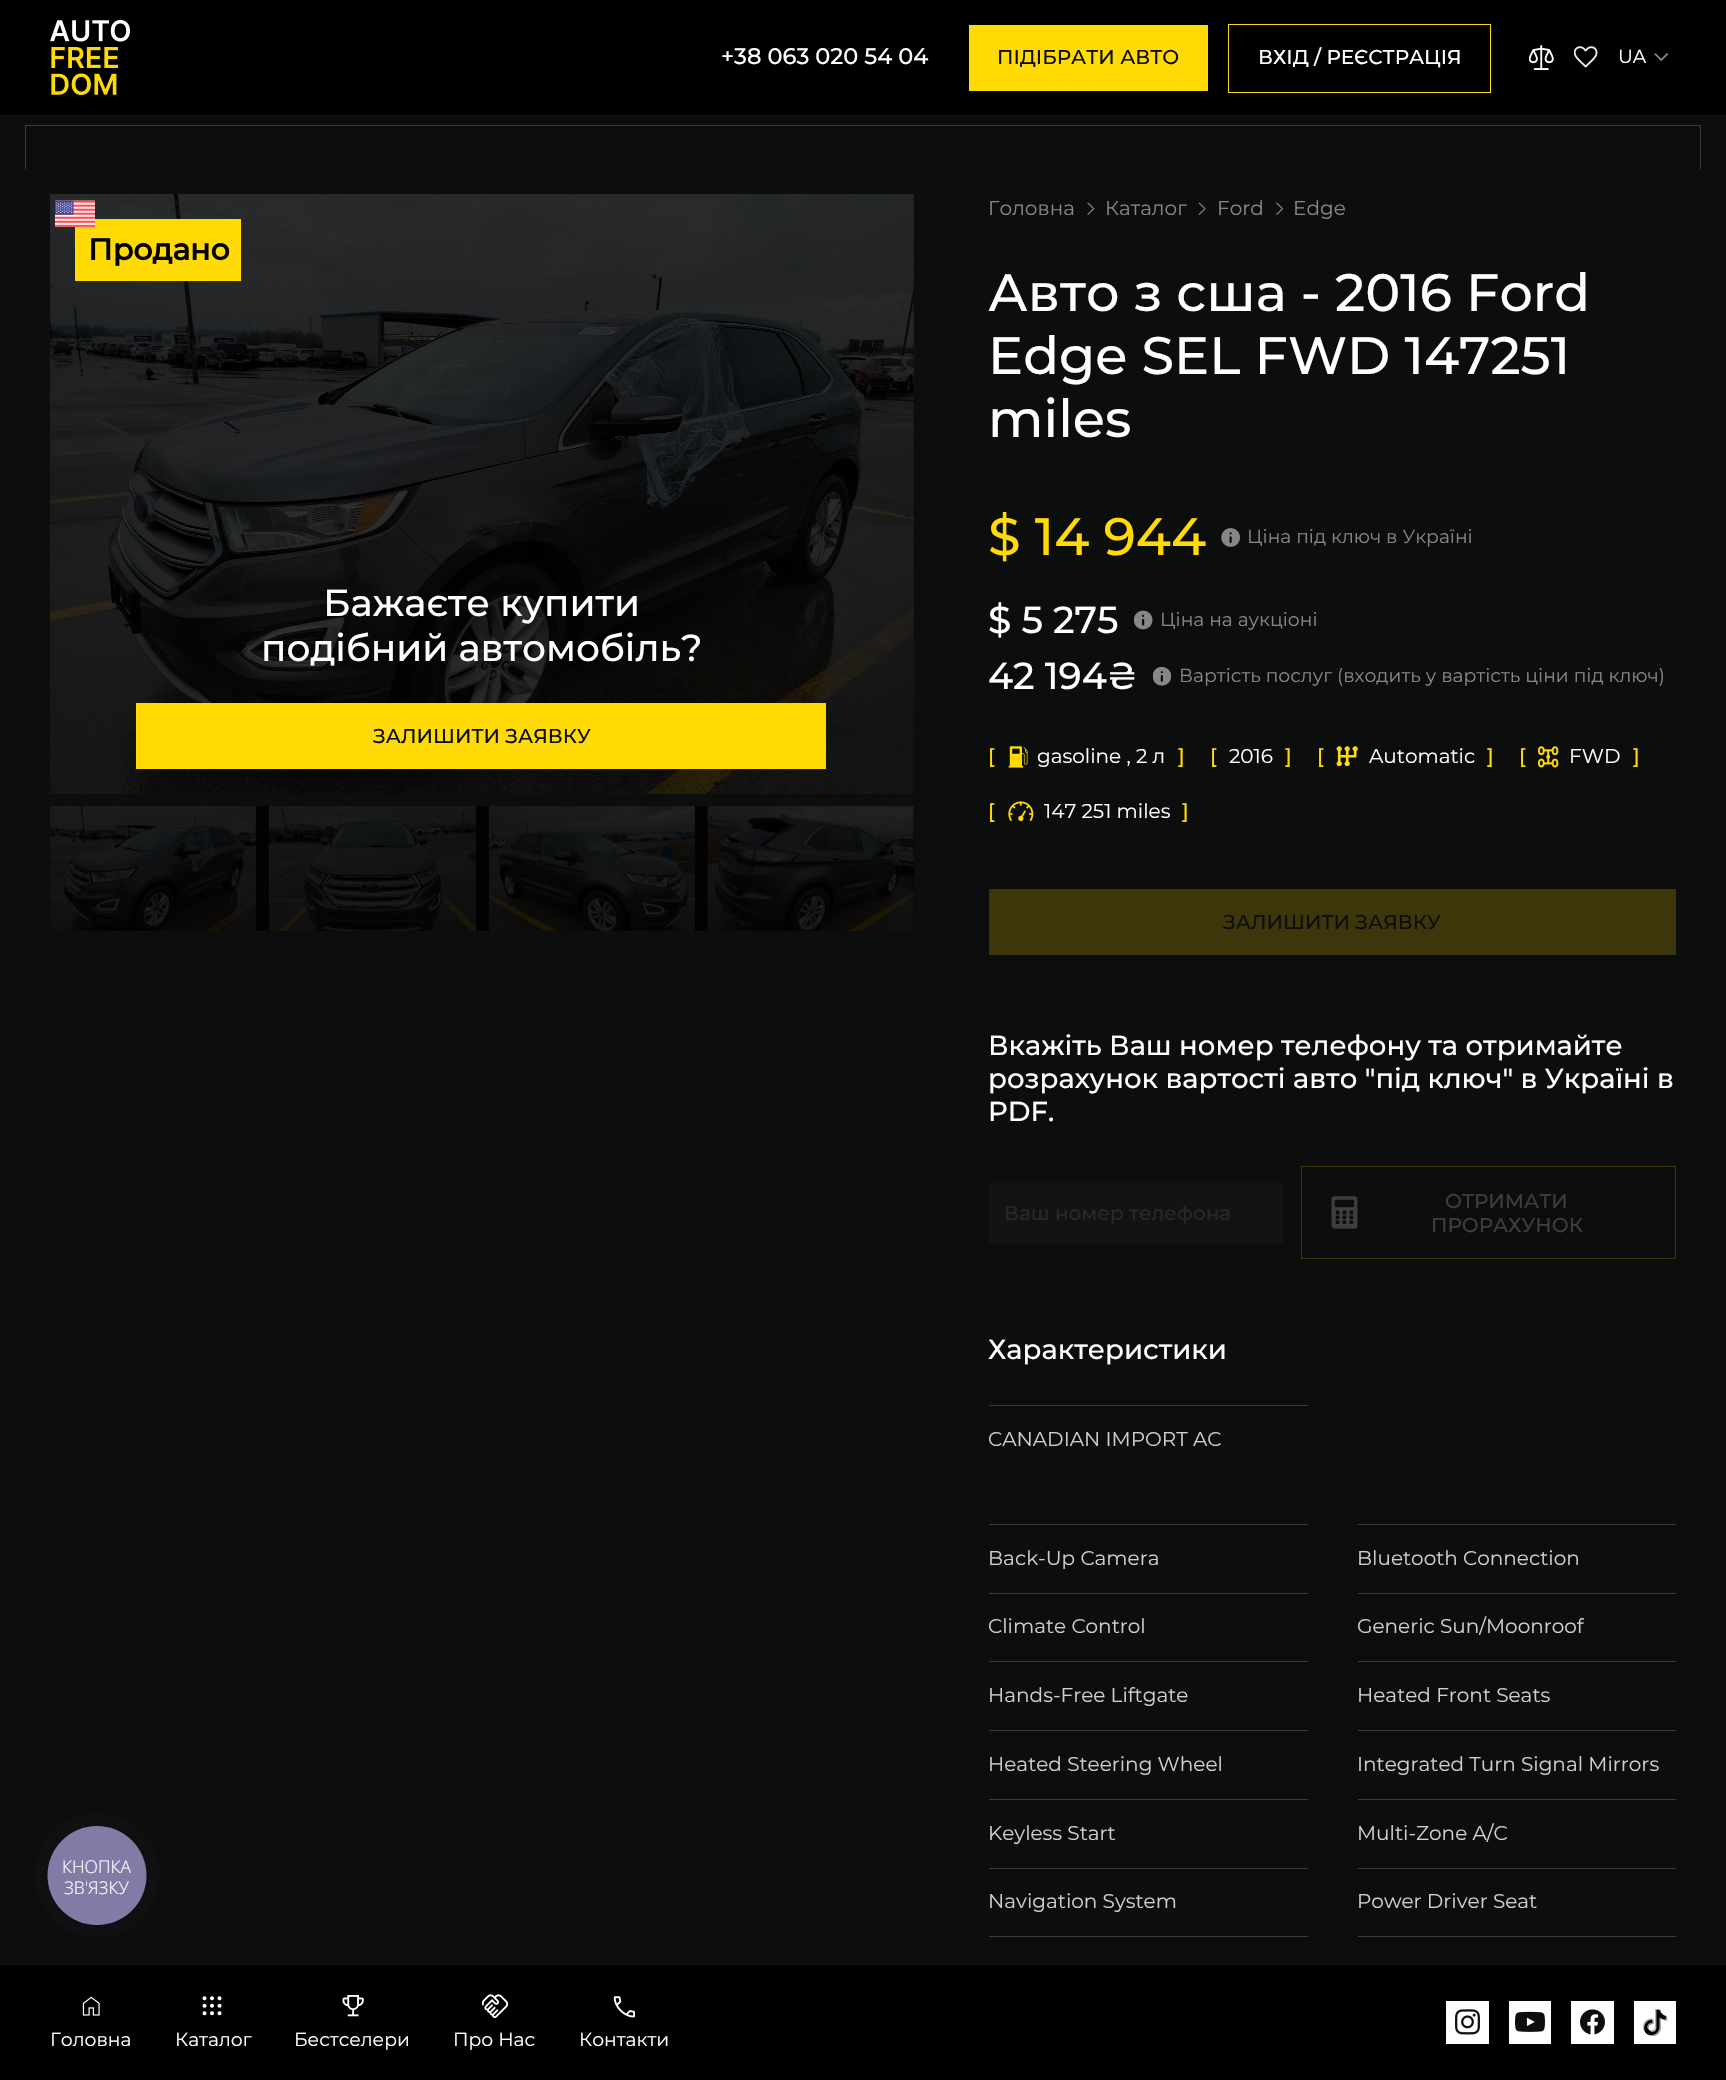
void draw(SkCanvas* c) {
SkPaint p;
p.setAntiAlias(true);
auto F=[&](const char* family, int weight, float size, bool italic = false){SkFontStyle style(weight, SkFontStyle::kNormal_Width,italic ? SkFontStyle::kItalic_Slant : SkFontStyle::kUpright_Slant);SkFont result(fontMgr->matchFamilyStyle(family, style), size);result.setSubpixel(true);return result;};
auto T=[&](const char* s, float x, float y, const SkFont& font){c->drawString(s, x, y, font, p);};
auto R=[&](float x, float y, float w, float h){c->drawRect(SkRect::MakeXYWH(x, y, w, h), p);};
auto I=[&](const char* path, float x, float y, float w, float h){auto image = SkImages::DeferredFromEncodedData(SkData::MakeFromFileName(path));c->drawImageRect(image, SkRect::MakeXYWH(x, y, w, h), SkSamplingOptions());};
c->clear(0xff0c0d0d);
p.setColor(0xff020202);
R(256,806,452,125);
R(913,806,1,125);
p.setColor(0xff000000);
R(0,0,1726,115);
I("1.png",50,20,80,75);
auto f1 = F("Montserrat",500,22.5);
p.setColor(0xffffffff);
T("+38 063 020 54 04",721,64,f1);
p.setColor(0xffffda05);
R(969,25,239,66);
auto f2 = F("Montserrat",500,20);
p.setColor(0xff0c0d0d);
T("ПІДІБРАТИ АВТО",997,64,f2);
p.setStroke(true);
p.setStrokeWidth(1);
p.setColor(0xffffda05);
c->drawRect(SkRect::MakeXYWH(1228.5,24.5,262,68),p);
p.setStroke(false);
p.setColor(0xffffffff);
T("ВХІД / РЕЄСТРАЦІЯ",1258,64,f2);
I("2.png",1529,45,25,25);
I("3.png",1574,46,24,22);
auto f3 = F("Montserrat",400,18.75);
T("UA",1618,63,f3);
I("4.png",1654,53,15,9);
p.setColor(0xff3b3b3b);
R(25,125,1676,1);
R(1700,125,1,44);
R(25,125,1,44);
I("5.png",50,194,864,600);
p.setColor(0xffffda05);
R(75,219,166,62);
I("6.png",55,200,40,27);
auto f4 = F("Montserrat",700,30);
p.setColor(0xff000000);
T("Продано",88,260,f4);
auto f5 = F("Montserrat",500,37.5);
p.setColor(0xffffffff);
T("Бажаєте купити",323,616,f5);
T("подібний автомобіль?",261,661,f5);
p.setColor(0xffffda05);
R(136,703,690,66);
p.setColor(0xff0c0d0d);
T("ЗАЛИШИТИ ЗАЯВКУ",373,743,f2);
I("7.png",50,806,207,125);
I("8.png",268,806,209,125);
I("9.png",488,806,207,125);
I("10.png",707,806,207,125);
auto f6 = F("Montserrat",400,20);
p.setColor(0xff868686);
T("Головна",988,215,f6);
I("11.png",1087,202,8,13);
T("Каталог",1105,215,f6);
I("12.png",1198,202,8,13);
T("Ford",1217,215,f6);
I("13.png",1276,202,7,13);
T("Edge",1293,215,f6);
auto f7 = F("Montserrat",500,52.5);
p.setColor(0xffffffff);
T("Авто з сша - 2016 Ford",988,311,f7);
T("Edge SEL FWD 147251",988,374,f7);
T("miles",988,437,f7);
p.setColor(0xffffda05);
T("$ 14 944",988,555,f7);
I("14.png",1221,528,19,19);
p.setColor(0xff868686);
T("Ціна під ключ в Україні",1247,543,f3);
p.setColor(0xffffffff);
T("$ 5 275",988,633,f5);
I("15.png",1134,610,19,20);
p.setColor(0xff868686);
T("Ціна на аукціоні",1160,626,f3);
p.setColor(0xffffffff);
T("42 194₴",988,689,f5);
I("16.png",1153,666,18,20);
p.setColor(0xff868686);
T("Вартість послуг (входить у вартість ціни під ключ)",1179,682,f3);
p.setColor(0xffffda05);
T("[",988,763,f2);
I("17.png",1008,746,20,22);
p.setColor(0xffffffff);
T("gasoline , 2 л",1037,763,f6);
p.setColor(0xffffda05);
T("]",1178,763,f2);
T("[",1210,763,f2);
p.setColor(0xffffffff);
T("2016",1229,763,f6);
p.setColor(0xffffda05);
T("]",1285,763,f2);
T("[",1317,763,f2);
I("18.png",1336,746,22,20);
p.setColor(0xffffffff);
T("Automatic",1369,763,f6);
p.setColor(0xffffda05);
T("]",1487,763,f2);
T("[",1519,763,f2);
I("19.png",1538,746,21,22);
p.setColor(0xffffffff);
T("FWD",1569,763,f6);
p.setColor(0xffffda05);
T("]",1633,763,f2);
T("[",988,818,f2);
I("20.png",1008,801,26,20);
p.setColor(0xffffffff);
T("147 251 miles",1044,818,f6);
p.setColor(0xffffda05);
T("]",1182,818,f2);
p.setColor(0xff3d360b);
R(989,889,687,66);
p.setColor(0xff0c0d0d);
T("ЗАЛИШИТИ ЗАЯВКУ",1223,929,f2);
auto f8 = F("Montserrat",500,27.5);
p.setColor(0xffffffff);
T("Вкажіть Ваш номер телефону та отримайте",988,1055,f8);
T("розрахунок вартості авто \"під ключ\" в Україні в",988,1088,f8);
T("PDF.",988,1121,f8);
p.setColor(0xff121313);
R(989,1183,294,61);
p.setColor(0xff282828);
T("Ваш номер телефона",1004,1220,f2);
p.setStroke(true);
p.setColor(0xff3d360b);
c->drawRect(SkRect::MakeXYWH(1301.5,1166.5,374,92),p);
I("21.png",1331,1196,27,33);
p.setStroke(false);
p.setColor(0xff3d3d3d);
T("ОТРИМАТИ",1445,1208,f2);
T("ПРОРАХУНОК",1431,1232,f2);
p.setColor(0xffffffff);
T("Характеристики",988,1359,f8);
p.setColor(0xff3b3b3b);
R(989,1405,319,1);
p.setColor(0xffcecfcf);
T("CANADIAN IMPORT AC",988,1446,f6);
p.setColor(0xff3b3b3b);
R(989,1524,319,1);
p.setColor(0xffcecfcf);
T("Back-Up Camera",988,1565,f6);
p.setColor(0xff3b3b3b);
R(1358,1524,318,1);
p.setColor(0xffcecfcf);
T("Bluetooth Connection",1357,1565,f6);
p.setColor(0xff3b3b3b);
R(989,1593,319,1);
p.setColor(0xffcecfcf);
T("Climate Control",988,1633,f6);
p.setColor(0xff3b3b3b);
R(1358,1593,318,1);
p.setColor(0xffcecfcf);
T("Generic Sun/Moonroof",1357,1633,f6);
p.setColor(0xff3b3b3b);
R(989,1661,319,1);
p.setColor(0xffcecfcf);
T("Hands-Free Liftgate",988,1702,f6);
p.setColor(0xff3b3b3b);
R(1358,1661,318,1);
p.setColor(0xffcecfcf);
T("Heated Front Seats",1357,1702,f6);
p.setColor(0xff3b3b3b);
R(989,1730,319,1);
p.setColor(0xffcecfcf);
T("Heated Steering Wheel",988,1771,f6);
p.setColor(0xff3b3b3b);
R(1358,1730,318,1);
p.setColor(0xffcecfcf);
T("Integrated Turn Signal Mirrors",1357,1771,f6);
p.setColor(0xff3b3b3b);
R(989,1799,319,1);
p.setColor(0xffcecfcf);
T("Keyless Start",988,1840,f6);
p.setColor(0xff3b3b3b);
R(1358,1799,318,1);
p.setColor(0xffcecfcf);
T("Multi-Zone A/C",1357,1840,f6);
p.setColor(0xff3b3b3b);
R(989,1868,319,1);
p.setColor(0xffcecfcf);
T("Navigation System",988,1908,f6);
p.setColor(0xff3b3b3b);
R(1358,1868,318,1);
p.setColor(0xffcecfcf);
T("Power Driver Seat",1357,1908,f6);
p.setColor(0xff3b3b3b);
R(989,1936,319,1);
R(1358,1936,318,1);
c->save();
c->clipRect(SkRect::MakeXYWH(35,1814,124,124));
p.setColor(0xff0e1012);
c->drawCircle(97,1875.5,62,p);
c->restore();
p.setColor(0xff837ba6);
c->drawCircle(97,1875.5,49.5,p);
auto f9 = F("Open Sans",300,17.5);
p.setColor(0xffffffff);
T("КНОПКА",62,1873,f9);
T("ЗВ'ЯЗКУ",64,1894,f9);
p.setColor(0xff000000);
R(0,1965,1726,115);
I("22.png",82,1996,18,20);
p.setColor(0xffffffff);
T("Головна",50,2046,f3);
I("23.png",202,1996,20,20);
T("Каталог",175,2046,f3);
I("24.png",342,1995,22,22);
T("Бестселери",294,2046,f3);
I("25.png",481,1994,28,25);
T("Про Нас",453,2046,f3);
I("26.png",613,1996,22,22);
T("Контакти",579,2046,f3);
R(1446,2001,43,43);
I("27.png",1455,2009,25,26);
R(1509,2001,42,43);
I("28.png",1515,2011,30,21);
R(1571,2001,43,43);
I("29.png",1580,2009,25,26);
R(1634,2001,42,43);
I("30.png",1643,2009,25,27);
}
